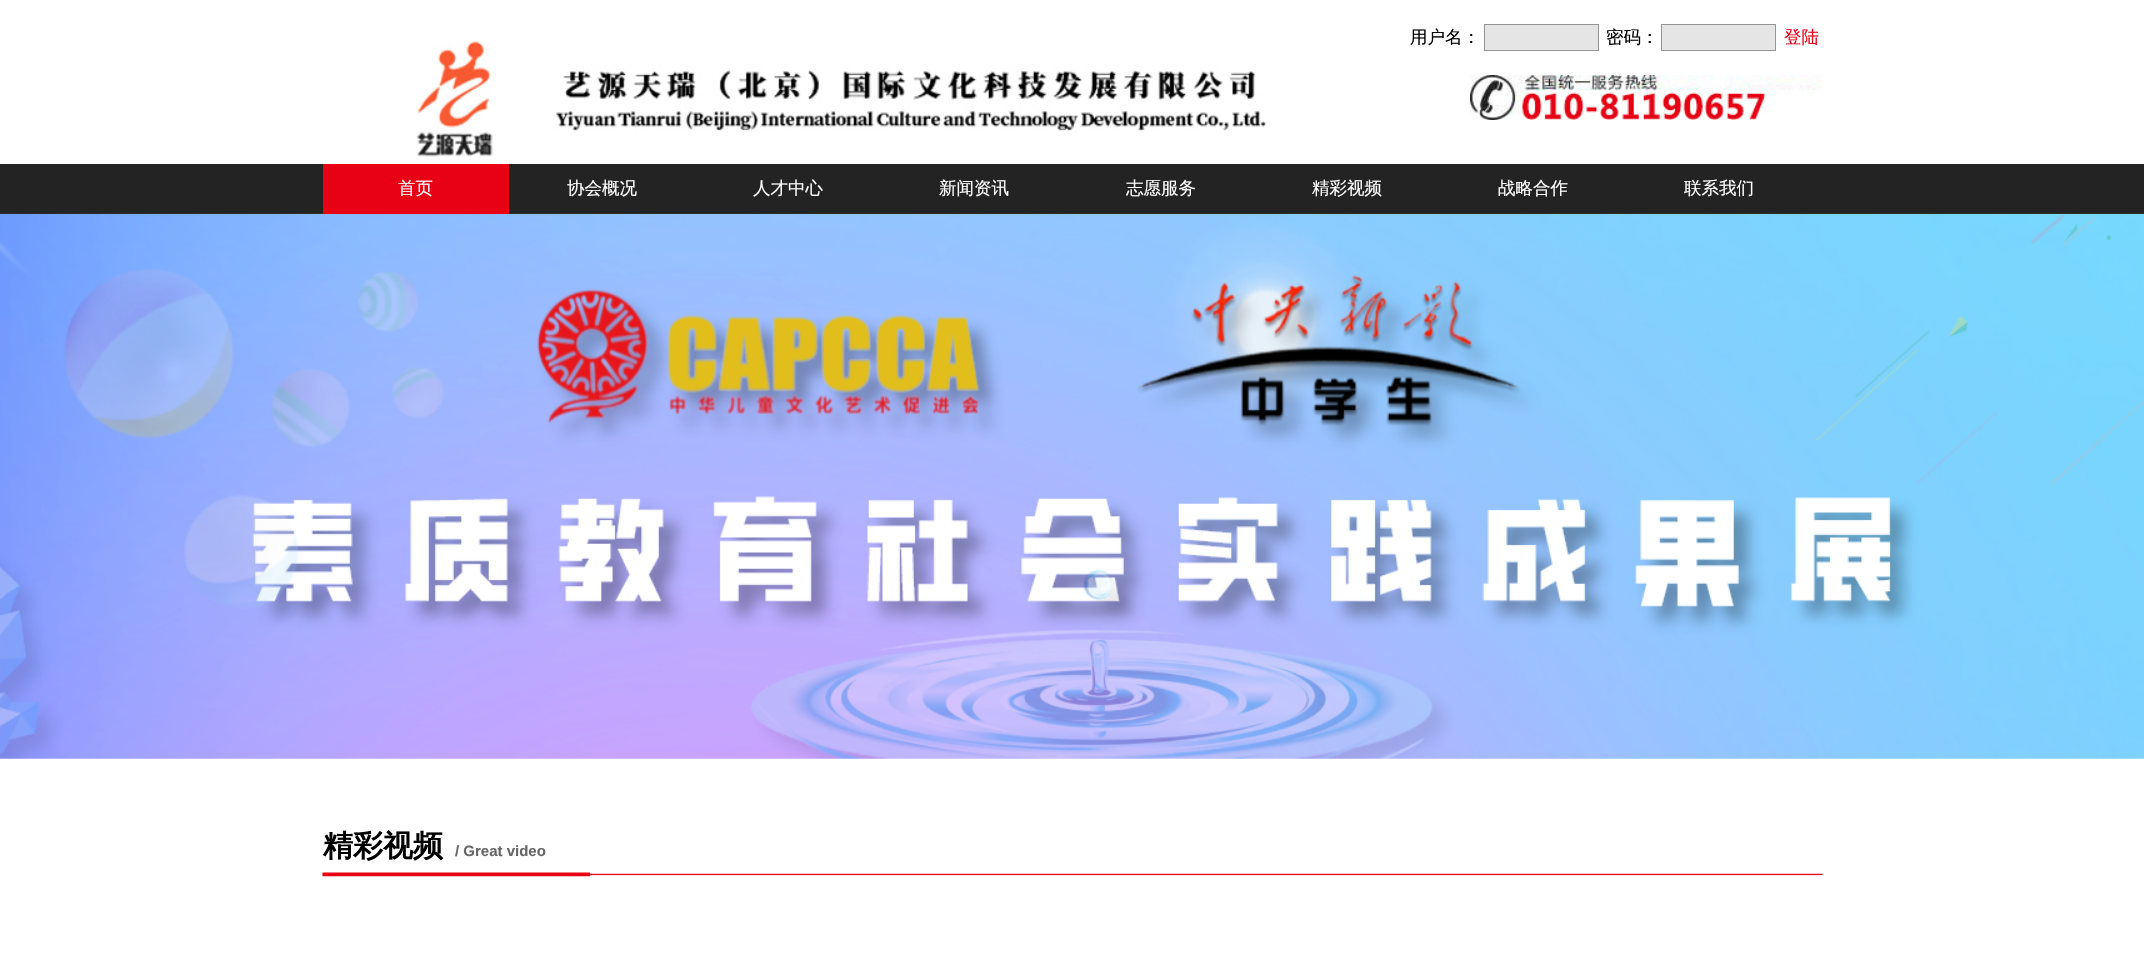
void draw(SkCanvas* c) {
SkPaint p;
p.setAntiAlias(true);
auto F=[&](const char* family, int weight, float size, bool italic = false){SkFontStyle style(weight, SkFontStyle::kNormal_Width,italic ? SkFontStyle::kItalic_Slant : SkFontStyle::kUpright_Slant);SkFont result(fontMgr->matchFamilyStyle(family, style), size);result.setSubpixel(true);return result;};
auto T=[&](const char* s, float x, float y, const SkFont& font){c->drawString(s, x, y, font, p);};
auto R=[&](float x, float y, float w, float h){c->drawRect(SkRect::MakeXYWH(x, y, w, h), p);};
auto I=[&](const char* path, float x, float y, float w, float h){auto image = SkImages::DeferredFromEncodedData(SkData::MakeFromFileName(path));c->drawImageRect(image, SkRect::MakeXYWH(x, y, w, h), SkSamplingOptions());};
c->clear(0xffffffff);
auto f1 = F("WenQuanYi Zen Hei",500,17.5);
p.setColor(0xff000000);
T("用户名：",1410,43,f1);
p.setColor(0xffe5e5e5);
c->drawRect(SkRect::MakeXYWH(1484.5,24.5,114,26),p);
p.setStroke(true);
p.setStrokeWidth(1);
p.setColor(0xff959595);
c->drawRect(SkRect::MakeXYWH(1484.5,24.5,114,26),p);
p.setStroke(false);
p.setColor(0xff000000);
T("密码：",1606,43,f1);
p.setColor(0xffe5e5e5);
c->drawRect(SkRect::MakeXYWH(1661.5,24.5,114,26),p);
p.setStroke(true);
p.setColor(0xff959595);
c->drawRect(SkRect::MakeXYWH(1661.5,24.5,114,26),p);
p.setStroke(false);
p.setColor(0xffe80015);
T("登陆",1784,43,f1);
I("1.png",1470,75,353,45);
I("2.png",416,41,851,116);
p.setColor(0xff232323);
R(0,164,2144,50);
I("3.png",0,213,2144,546);
p.setColor(0xffe80015);
R(323,164,186,50);
p.setColor(0xffffffff);
T("首页",398,194,f1);
T("协会概况",567,194,f1);
T("人才中心",753,194,f1);
T("新闻资讯",939,194,f1);
T("志愿服务",1126,194,f1);
T("精彩视频",1312,194,f1);
T("战略合作",1498,194,f1);
T("联系我们",1684,194,f1);
I("4.png",322,872,1501,5);
auto f2 = F("WenQuanYi Zen Hei",700,30);
p.setColor(0xff000000);
T("精彩视频",323,856,f2);
auto f3 = F("Liberation Sans",700,15);
p.setColor(0xff666666);
T("/ Great video",455,856,f3);
}
